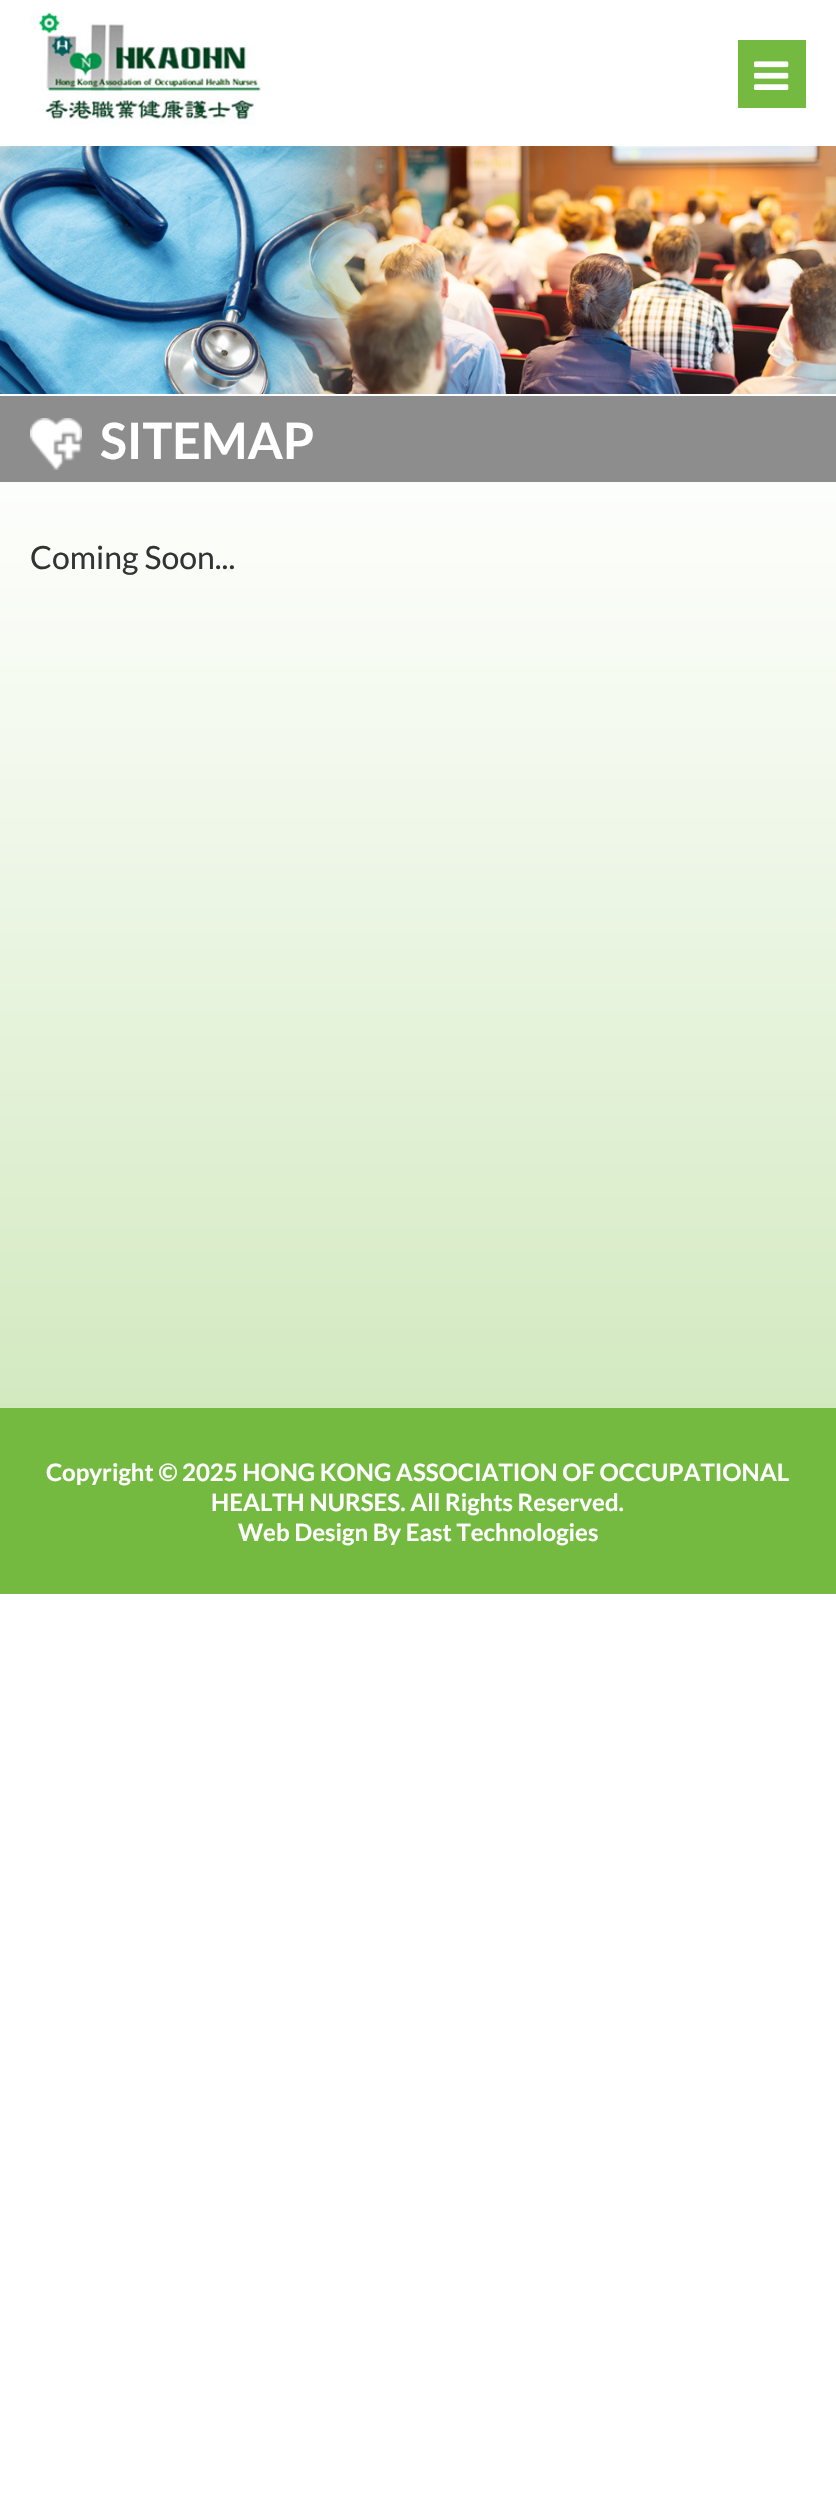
void draw(SkCanvas* c) {
SkPaint p;
p.setAntiAlias(true);
auto F=[&](const char* family, int weight, float size, bool italic = false){SkFontStyle style(weight, SkFontStyle::kNormal_Width,italic ? SkFontStyle::kItalic_Slant : SkFontStyle::kUpright_Slant);SkFont result(fontMgr->matchFamilyStyle(family, style), size);result.setSubpixel(true);return result;};
auto T=[&](const char* s, float x, float y, const SkFont& font){c->drawString(s, x, y, font, p);};
auto R=[&](float x, float y, float w, float h){c->drawRect(SkRect::MakeXYWH(x, y, w, h), p);};
auto I=[&](const char* path, float x, float y, float w, float h){auto image = SkImages::DeferredFromEncodedData(SkData::MakeFromFileName(path));c->drawImageRect(image, SkRect::MakeXYWH(x, y, w, h), SkSamplingOptions());};
c->clear(0xffffffff);
I("1.png",30,12,232,113);
p.setColor(0xff74ba41);
R(738,40,68,68);
I("2.png",754,61,35,29);
I("3.png",0,146,836,248);
p.setColor(0xff8d8d8d);
R(0,396,836,86);
I("4.png",30,418,52,52);
auto f1 = F("Lato",700,50);
p.setColor(0xffffffff);
T("SITEMAP",100,459,f1);
I("5.png",0,482,836,926);
auto f2 = F("Lato",400,32);
p.setColor(0xff333333);
T("Coming Soon...",30,569,f2);
p.setColor(0xff74ba41);
R(0,1408,836,186);
auto f3 = F("Lato",700,24);
p.setColor(0xffffffff);
T("Copyright © 2025 HONG KONG ASSOCIATION OF OCCUPATIONAL",46,1481,f3);
T("HEALTH NURSES. All Rights Reserved.",211,1511,f3);
T("Web Design By East Technologies",238,1541,f3);
}
